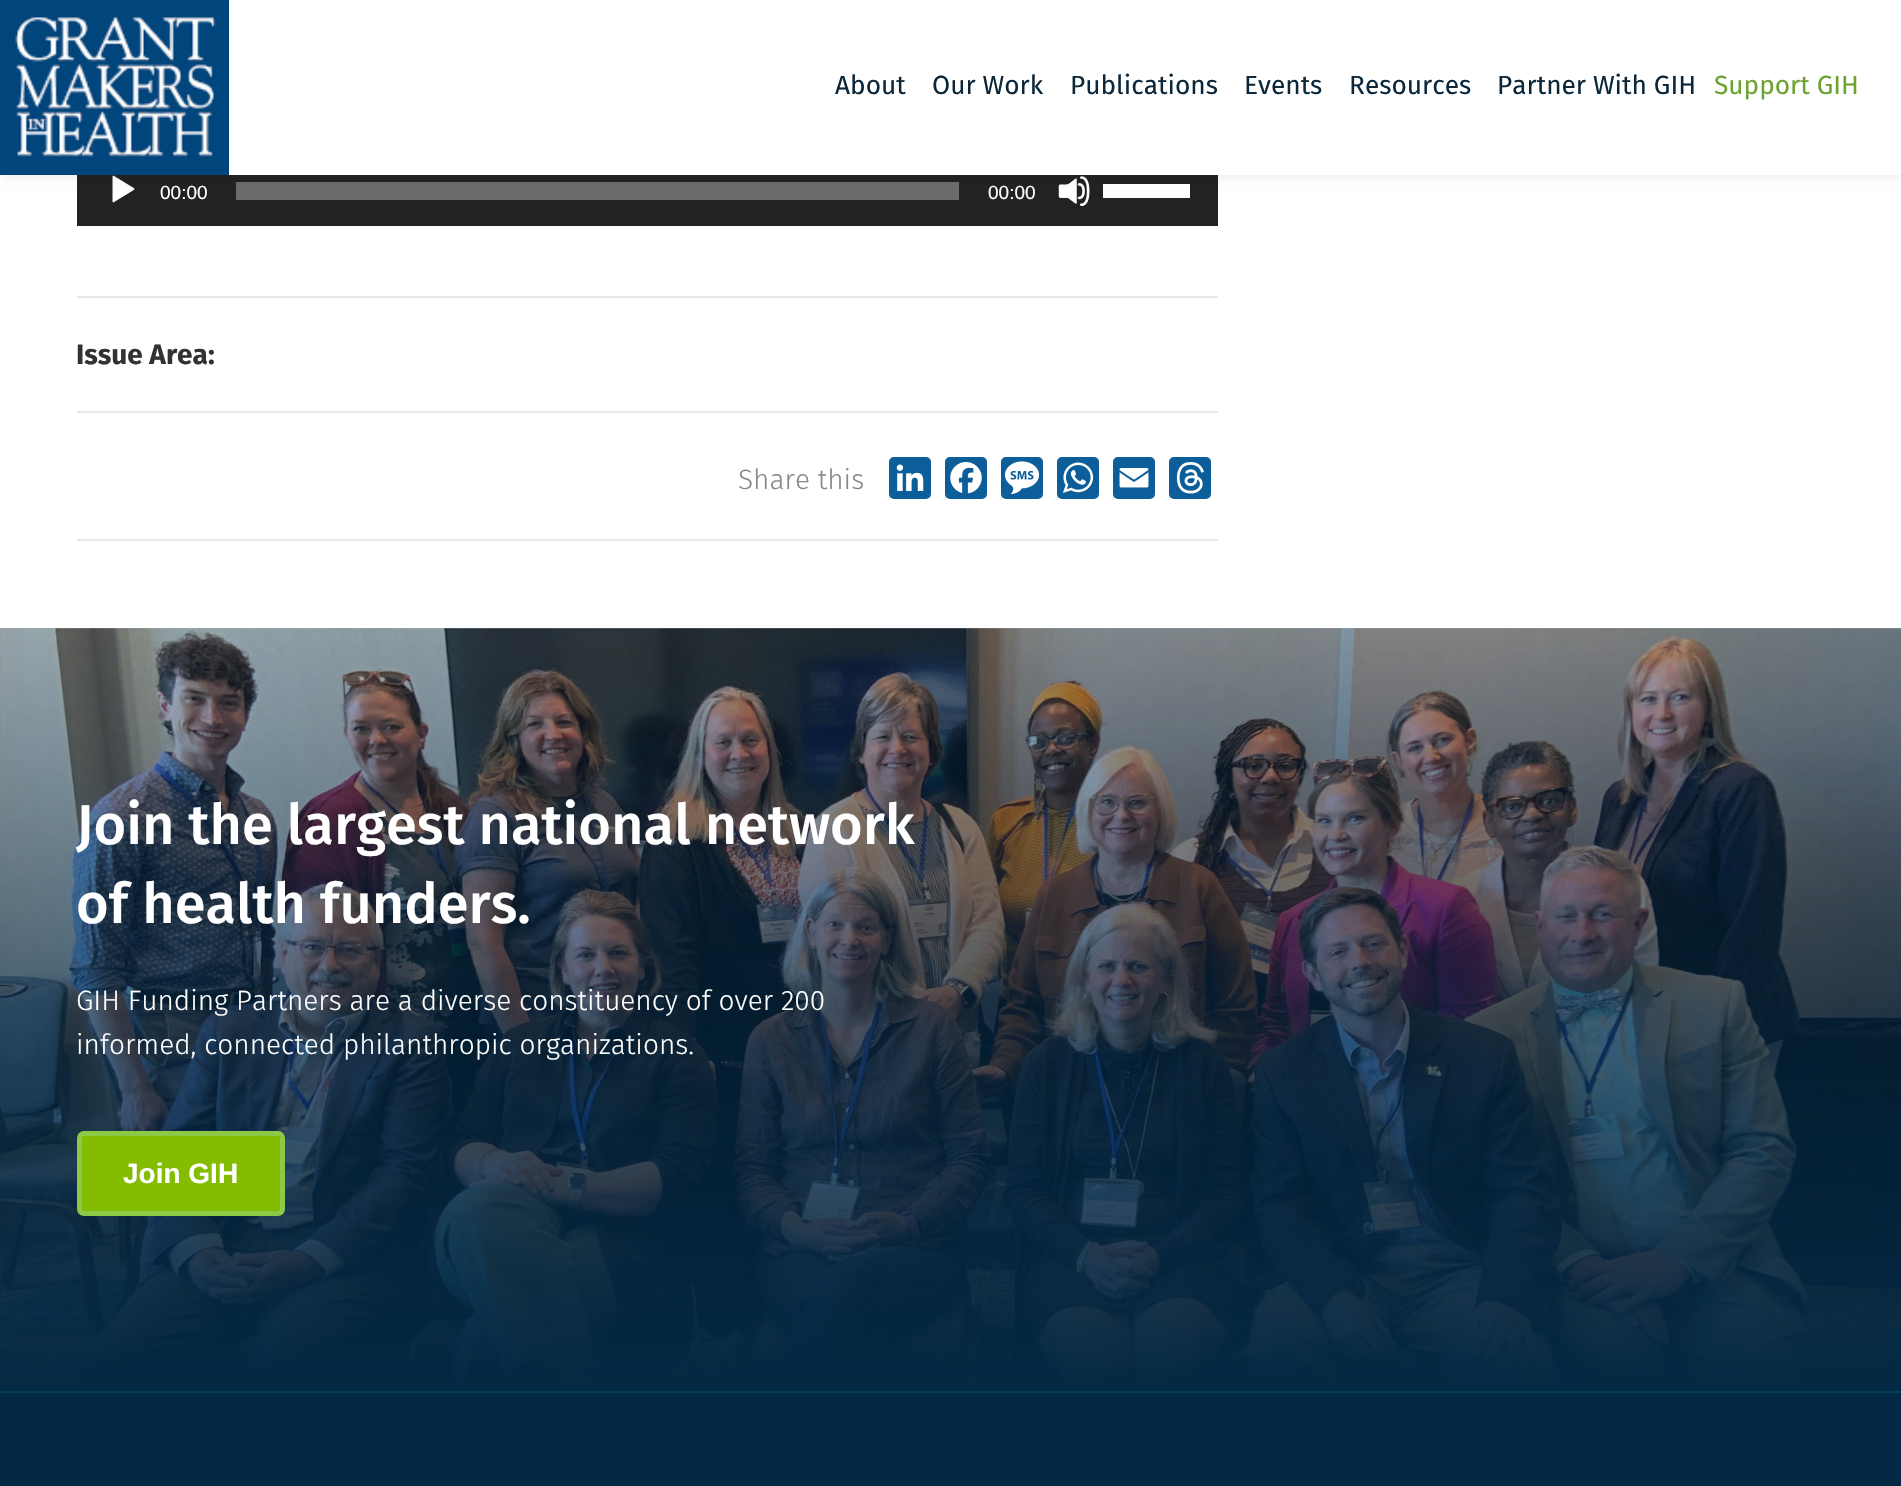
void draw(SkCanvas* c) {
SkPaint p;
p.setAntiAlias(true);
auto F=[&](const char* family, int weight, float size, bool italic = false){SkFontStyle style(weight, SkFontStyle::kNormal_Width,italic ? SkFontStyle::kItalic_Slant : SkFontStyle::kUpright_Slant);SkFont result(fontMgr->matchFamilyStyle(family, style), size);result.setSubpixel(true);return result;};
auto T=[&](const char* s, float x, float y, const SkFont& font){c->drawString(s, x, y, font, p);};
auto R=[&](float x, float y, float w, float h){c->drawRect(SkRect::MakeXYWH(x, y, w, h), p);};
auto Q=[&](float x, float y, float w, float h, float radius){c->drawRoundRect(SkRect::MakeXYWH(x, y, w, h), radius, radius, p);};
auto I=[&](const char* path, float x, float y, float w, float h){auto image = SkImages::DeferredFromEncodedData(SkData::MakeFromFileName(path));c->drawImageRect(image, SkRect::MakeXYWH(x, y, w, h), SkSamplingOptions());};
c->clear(0xffffffff);
p.setColor(0xff222222);
R(77,175,1141,51);
I("2.png",112,175,23,28);
p.setColor(0xff6b6b6b);
R(236,182,723,18);
I("3.png",1058,176,32,30);
p.setColor(0xffffffff);
R(1103,184,87,14);
p.setColor(0x1a000000);
p.setMaskFilter(SkMaskFilter::MakeBlur(kNormal_SkBlurStyle, 6));
c->drawRect(SkRect::MakeXYWH(0,0,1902,175),p);
p.setMaskFilter(nullptr);
p.setColor(0xffffffff);
R(229,0,1672,175);
I("1.png",0,0,229,175);
auto f1 = F("Fira Sans",400,26.25);
p.setColor(0xff0c273a);
T("About",835,94,f1);
T("Our Work",932,94,f1);
T("Publications",1070,94,f1);
T("Events",1244,94,f1);
T("Resources",1349,94,f1);
T("Partner With GIH",1497,94,f1);
p.setColor(0xff6da330);
T("Support GIH",1714,94,f1);
auto f2 = F("Liberation Sans",400,19);
p.setColor(0xffffffff);
T("00:00",160,199,f2);
T("00:00",988,199,f2);
p.setColor(0xffe8e8e8);
R(77,296,1141,2);
auto f3 = F("Fira Sans",700,28);
p.setColor(0xff323232);
T("Issue Area:",76,364,f3);
p.setColor(0xffe8e8e8);
R(77,411,1141,2);
auto f4 = F("Fira Sans",300,28);
p.setColor(0xff888888);
T("Share this",738,489,f4);
p.setColor(0xff0b5e99);
Q(889,457,42,42,5);
I("4.png",896,464,28,27);
Q(945,457,42,42,5);
I("5.png",950,462,32,32);
Q(1001,457,42,42,5);
I("6.png",1004,461,36,34);
Q(1057,457,42,42,5);
I("7.png",1063,462,31,31);
Q(1113,457,42,42,5);
I("8.png",1119,468,30,20);
Q(1169,457,42,42,5);
I("9.png",1176,462,28,32);
p.setColor(0xffe8e8e8);
R(77,539,1141,2);
I("10.png",0,628,1901,756);
p.setColor(0xff083c5e);
R(0,1391,1901,2);
{
const SkColor colors[] = {0xff032843,0x5c032843};
const float stops[] = {0,1};
const SkPoint ends[] = {{951,1391}, {951,628}};
p.setShader(SkGradientShader::MakeLinear(ends, colors, stops, 2, SkTileMode::kClamp));
p.setAlpha(255);
}
R(0,628,1901,763);
auto f5 = F("Fira Sans",500,56);
p.setShader(nullptr);
p.setColor(0xffffffff);
T("Join the largest national network",76,844,f5);
T("of health funders.",76,923,f5);
T("GIH Funding Partners are a diverse constituency of over 200",76,1010,f4);
T("informed, connected philanthropic organizations.",76,1054,f4);
p.setColor(0xff84bd00);
c->drawRoundRect(SkRect::MakeXYWH(79.5,1133.5,203,80),4.5,4.5,p);
p.setStroke(true);
p.setStrokeWidth(5);
p.setColor(0xff8cc947);
c->drawRoundRect(SkRect::MakeXYWH(79.5,1133.5,203,80),4.5,4.5,p);
auto f6 = F("Liberation Sans",700,28);
p.setStroke(false);
p.setColor(0xffffffff);
T("Join GIH",123,1183,f6);
p.setColor(0xff032843);
R(0,1393,1901,93);
}
